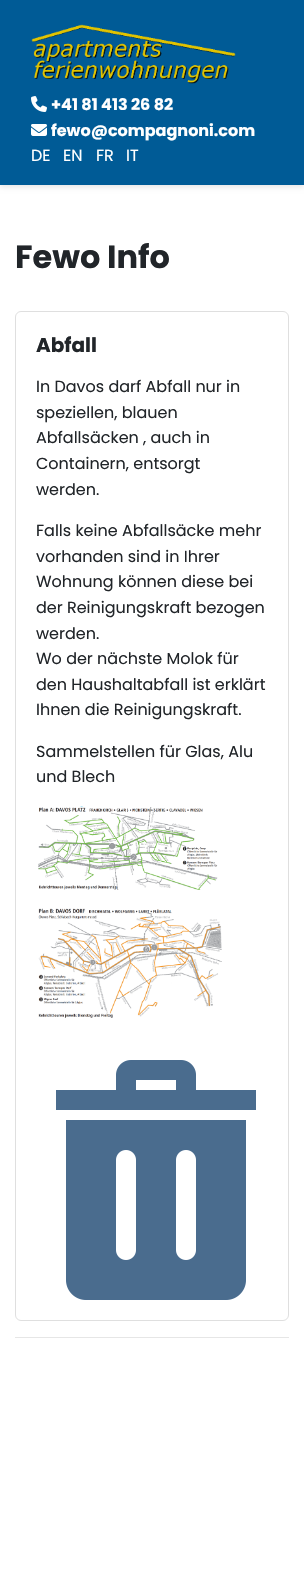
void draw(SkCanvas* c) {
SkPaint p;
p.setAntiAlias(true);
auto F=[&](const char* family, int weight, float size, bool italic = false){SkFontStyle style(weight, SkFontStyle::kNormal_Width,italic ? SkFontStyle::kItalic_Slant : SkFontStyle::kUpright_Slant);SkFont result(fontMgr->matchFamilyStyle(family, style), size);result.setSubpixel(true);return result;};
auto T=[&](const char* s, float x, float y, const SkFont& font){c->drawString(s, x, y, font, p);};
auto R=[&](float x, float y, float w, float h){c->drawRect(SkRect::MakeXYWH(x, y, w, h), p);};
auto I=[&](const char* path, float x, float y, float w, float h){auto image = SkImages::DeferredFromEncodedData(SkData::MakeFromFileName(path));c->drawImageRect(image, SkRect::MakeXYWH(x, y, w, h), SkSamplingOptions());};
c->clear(0xffffffff);
p.setColor(0x1a000000);
p.setMaskFilter(SkMaskFilter::MakeBlur(kNormal_SkBlurStyle, 2.5));
c->drawRect(SkRect::MakeXYWH(0,2,304,185),p);
p.setMaskFilter(nullptr);
p.setColor(0xff005b96);
R(0,0,304,185);
I("1.png",31,24,205,60);
I("2.png",31,96,16,16);
auto f1 = F("Poppins",700,16);
p.setColor(0xffffffff);
T("+41 81 413 26 82",51,110,f1);
I("3.png",31,124,16,12);
T("fewo@compagnoni.com",51,136,f1);
auto f2 = F("Poppins",400,16);
T("DE",31,161,f2);
T("EN",63,161,f2);
T("FR",96,161,f2);
T("IT",126,161,f2);
auto f3 = F("Poppins",700,32);
p.setColor(0xff212529);
T("Fewo Info",15,268,f3);
p.setStroke(true);
p.setStrokeWidth(1);
p.setColor(0xffdfdfdf);
c->drawRoundRect(SkRect::MakeXYWH(15.5,311.5,273,1009),5.5,5.5,p);
auto f4 = F("Poppins",700,20);
p.setStroke(false);
p.setColor(0xff212529);
T("Abfall",36,352,f4);
T("In Davos darf Abfall nur in",36,392,f2);
T("speziellen, blauen",36,418,f2);
T("Abfallsäcken , auch in",36,443,f2);
T("Containern, entsorgt",36,469,f2);
T("werden.",36,495,f2);
T("Falls keine Abfallsäcke mehr",36,536,f2);
T("vorhanden sind in Ihrer",36,562,f2);
T("Wohnung können diese bei",36,587,f2);
T("der Reinigungskraft bezogen",36,613,f2);
T("werden.",36,639,f2);
T("Wo der nächste Molok für",36,664,f2);
T("den Haushaltabfall ist erklärt",36,690,f2);
T("Ihnen die Reinigungskraft.",36,715,f2);
T("Sammelstellen für Glas, Alu",36,757,f2);
T("und Blech",36,782,f2);
I("4.png",38,806,180,84);
I("5.png",38,908,184,110);
I("6.png",56,1060,200,240);
p.setColor(0xffe6e6e6);
R(15,1337,274,1);
}
